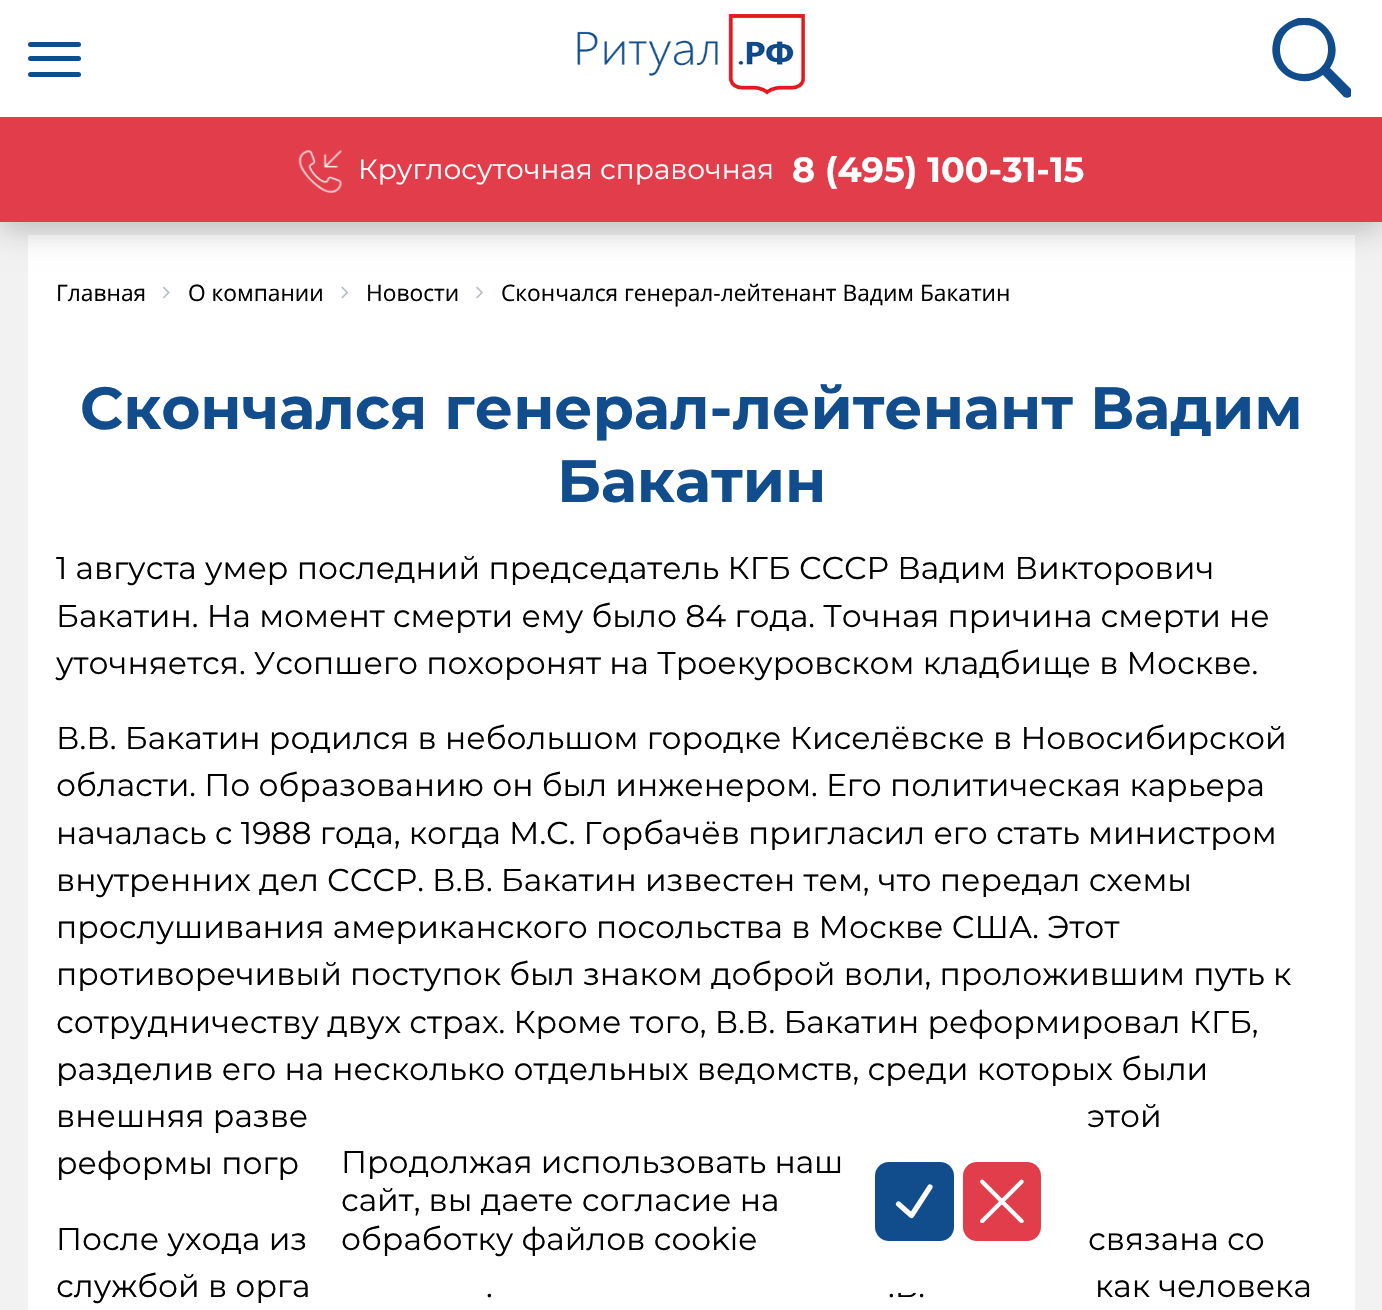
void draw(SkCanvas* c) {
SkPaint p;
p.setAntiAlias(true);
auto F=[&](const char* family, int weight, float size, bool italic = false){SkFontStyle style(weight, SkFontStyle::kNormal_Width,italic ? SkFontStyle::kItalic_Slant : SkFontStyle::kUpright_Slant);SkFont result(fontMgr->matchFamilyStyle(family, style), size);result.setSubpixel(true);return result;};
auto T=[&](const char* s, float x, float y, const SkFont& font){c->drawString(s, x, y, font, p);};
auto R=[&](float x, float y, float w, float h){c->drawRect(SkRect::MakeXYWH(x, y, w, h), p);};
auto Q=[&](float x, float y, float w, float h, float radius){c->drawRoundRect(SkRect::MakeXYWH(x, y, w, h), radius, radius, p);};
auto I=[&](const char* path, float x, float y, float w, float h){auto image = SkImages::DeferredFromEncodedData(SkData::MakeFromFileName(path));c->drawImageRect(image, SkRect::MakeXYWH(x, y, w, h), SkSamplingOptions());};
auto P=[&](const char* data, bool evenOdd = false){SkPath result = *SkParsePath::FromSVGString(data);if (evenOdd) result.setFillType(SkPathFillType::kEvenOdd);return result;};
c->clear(0xfff2f2f2);
p.setColor(0xffffffff);
R(28,235,1327,1075);
p.setColor(0x36000000);
p.setMaskFilter(SkMaskFilter::MakeBlur(kNormal_SkBlurStyle, 14));
c->drawRect(SkRect::MakeXYWH(0,9,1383,222),p);
p.setMaskFilter(nullptr);
p.setColor(0xffffffff);
R(0,0,1382,117);
p.setColor(0xff114c8c);
Q(28,42,53,5,2.5);
Q(28,56,53,5,2.5);
Q(28,72,53,5,2.5);
I("1.png",577,14,228,81);
c->save();
c->clipRect(SkRect::MakeXYWH(1272,18,79,80));
c->drawPath(P("M1351 89l-21-21c16-23-4-55-32-50c-6 2-12 5-16 9c-5 4-8 10-9 16c-6 29 27 49 50 32l21 22c6 3 12-4 7-8zm-47-15c-32 0-32-49 0-49c32 0 32 49 0 49z"),p);
c->restore();
p.setColor(0xffe13d4b);
R(0,117,1382,105);
I("2.png",298,150,44,43);
auto f1 = F("Montserrat",400,28);
p.setColor(0xffffffff);
T("Круглосуточная справочная",358,179,f1);
auto f2 = F("Montserrat",700,35);
T("8 (495) 100-31-15",792,182,f2);
auto f3 = F("Open Sans",400,22.75);
p.setColor(0xff000000);
T("Главная",56,301,f3);
I("3.png",163,286,7,13);
T("О компании",188,301,f3);
I("4.png",341,286,8,13);
T("Новости",366,301,f3);
I("5.png",476,286,7,13);
T("Скончался генерал-лейтенант Вадим Бакатин",501,301,f3);
auto f4 = F("Montserrat",700,59.5);
p.setColor(0xff114c8c);
T("Скончался генерал-лейтенант Вадим",80,429,f4);
T("Бакатин",557,502,f4);
auto f5 = F("Montserrat",400,31.5);
p.setColor(0xff000000);
T("1 августа умер последний председатель КГБ СССР Вадим Викторович",56,579,f5);
T("Бакатин. На момент смерти ему было 84 года. Точная причина смерти не",56,627,f5);
T("уточняется. Усопшего похоронят на Троекуровском кладбище в Москве.",56,674,f5);
T("В.В. Бакатин родился в небольшом городке Киселёвске в Новосибирской",56,749,f5);
T("области. По образованию он был инженером. Его политическая карьера",56,796,f5);
T("началась с 1988 года, когда М.С. Горбачёв пригласил его стать министром",56,844,f5);
T("внутренних дел СССР. В.В. Бакатин известен тем, что передал схемы",56,891,f5);
T("прослушивания американского посольства в Москве США. Этот",56,938,f5);
T("противоречивый поступок был знаком доброй воли, проложившим путь к",56,985,f5);
T("сотрудничеству двух страх. Кроме того, В.В. Бакатин реформировал КГБ,",56,1033,f5);
T("разделив его на несколько отдельных ведомств, среди которых были",56,1080,f5);
T("внешняя разве",56,1127,f5);
T("этой",1087,1127,f5);
T("реформы погр",56,1174,f5);
T("После ухода из",56,1250,f5);
T("связана со",1088,1250,f5);
T("службой в орга",56,1297,f5);
T(".",486,1297,f5);
T(".В.",888,1297,f5);
T("как человека",1095,1297,f5);
p.setColor(0xffffffff);
Q(306,1108,770,185,18);
p.setColor(0xff000000);
T("Продолжая использовать наш",341,1173,f5);
T("сайт, вы даете согласие на",341,1211,f5);
T("обработку файлов cookie",341,1250,f5);
p.setColor(0xff114c8c);
Q(875,1162,79,79,14);
p.setStroke(true);
p.setStrokeWidth(5.2);
p.setStrokeCap(SkPaint::kRound_Cap);
p.setStrokeJoin(SkPaint::kRound_Join);
p.setColor(0xffffffff);
c->drawPath(P("M898.5 1204l13 11.5l18.5-28.5"),p);
p.setStroke(false);
p.setColor(0xffe13d4b);
Q(963,1162,78,79,14);
I("6.png",980,1179,44,44);
}
